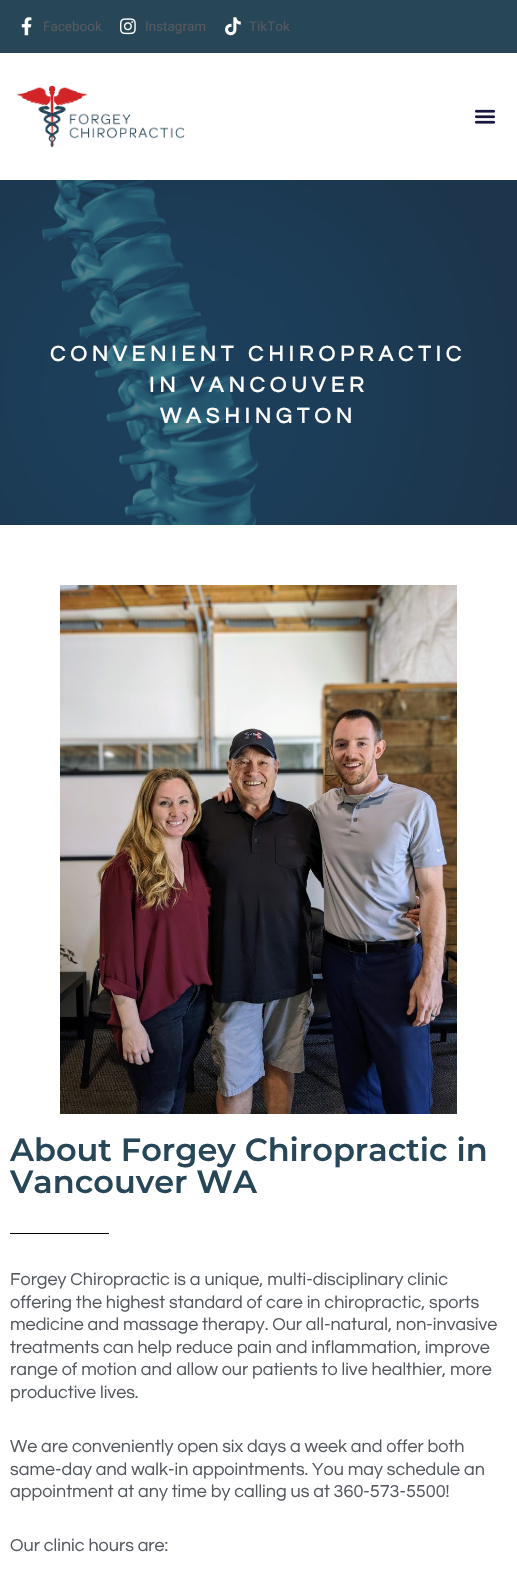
void draw(SkCanvas* c) {
SkPaint p;
p.setAntiAlias(true);
auto F=[&](const char* family, int weight, float size, bool italic = false){SkFontStyle style(weight, SkFontStyle::kNormal_Width,italic ? SkFontStyle::kItalic_Slant : SkFontStyle::kUpright_Slant);SkFont result(fontMgr->matchFamilyStyle(family, style), size);result.setSubpixel(true);return result;};
auto T=[&](const char* s, float x, float y, const SkFont& font){c->drawString(s, x, y, font, p);};
auto L=[&](const char* s, float x, float y, const SkFont& font, const SkPaint& ink, float letter, float word){std::vector<SkGlyphID> glyphs(font.countText(s, strlen(s), SkTextEncoding::kUTF8));std::vector<float> xs(glyphs.size());font.textToGlyphs(s, strlen(s), SkTextEncoding::kUTF8, glyphs);font.getXPos(glyphs, xs, x);float extra = 0;for (size_t i = 0; i < glyphs.size(); i++) {xs[i] += extra;extra += letter + word * (glyphs[i] == font.unicharToGlyph(' '));}c->drawTextBlob(SkTextBlob::MakeFromPosHGlyphs(glyphs, xs, y, font), 0, 0, ink);};
auto R=[&](float x, float y, float w, float h){c->drawRect(SkRect::MakeXYWH(x, y, w, h), p);};
auto I=[&](const char* path, float x, float y, float w, float h){auto image = SkImages::DeferredFromEncodedData(SkData::MakeFromFileName(path));c->drawImageRect(image, SkRect::MakeXYWH(x, y, w, h), SkSamplingOptions());};
c->clear(0xffffffff);
p.setColor(0xff274658);
R(0,0,517,53);
I("1.png",21,17,11,19);
auto f1 = F("Roboto",400,13.5);
p.setColor(0xff54595f);
T("Facebook",43,31,f1);
I("2.png",120,18,16,17);
T("Instagram",145,31,f1);
I("3.png",225,17,16,19);
T("TikTok",249,31,f1);
I("4.png",16,85,169,63);
I("5.png",474,109,22,15);
I("6.png",0,180,517,345);
auto f2 = F("Questrial",700,22);
p.setColor(0xffffffff);
L("CONVENIENT CHIROPRACTIC",50,361,f2,p,5,0);
L("IN VANCOUVER",149,392,f2,p,5,0);
L("WASHINGTON",160,423,f2,p,5,0);
I("7.png",60,585,397,529);
auto f3 = F("Montserrat",600,32);
p.setColor(0xff274658);
T("About Forgey Chiropractic in",10,1161,f3);
T("Vancouver WA",10,1193,f3);
p.setColor(0xff000000);
R(10,1233,99,1);
auto f4 = F("Questrial",400,18);
p.setColor(0xff54595f);
T("Forgey Chiropractic is a unique, multi-disciplinary clinic",10,1285,f4);
T("offering the highest standard of care in chiropractic, sports",10,1308,f4);
T("medicine and massage therapy. Our all-natural, non-invasive",10,1330,f4);
T("treatments can help reduce pain and inflammation, improve",10,1353,f4);
T("range of motion and allow our patients to live healthier, more",10,1375,f4);
T("productive lives.",10,1398,f4);
T("We are conveniently open six days a week and offer both",10,1452,f4);
T("same-day and walk-in appointments. You may schedule an",10,1475,f4);
T("appointment at any time by calling us at 360-573-5500!",10,1497,f4);
T("Our clinic hours are:",10,1551,f4);
}
